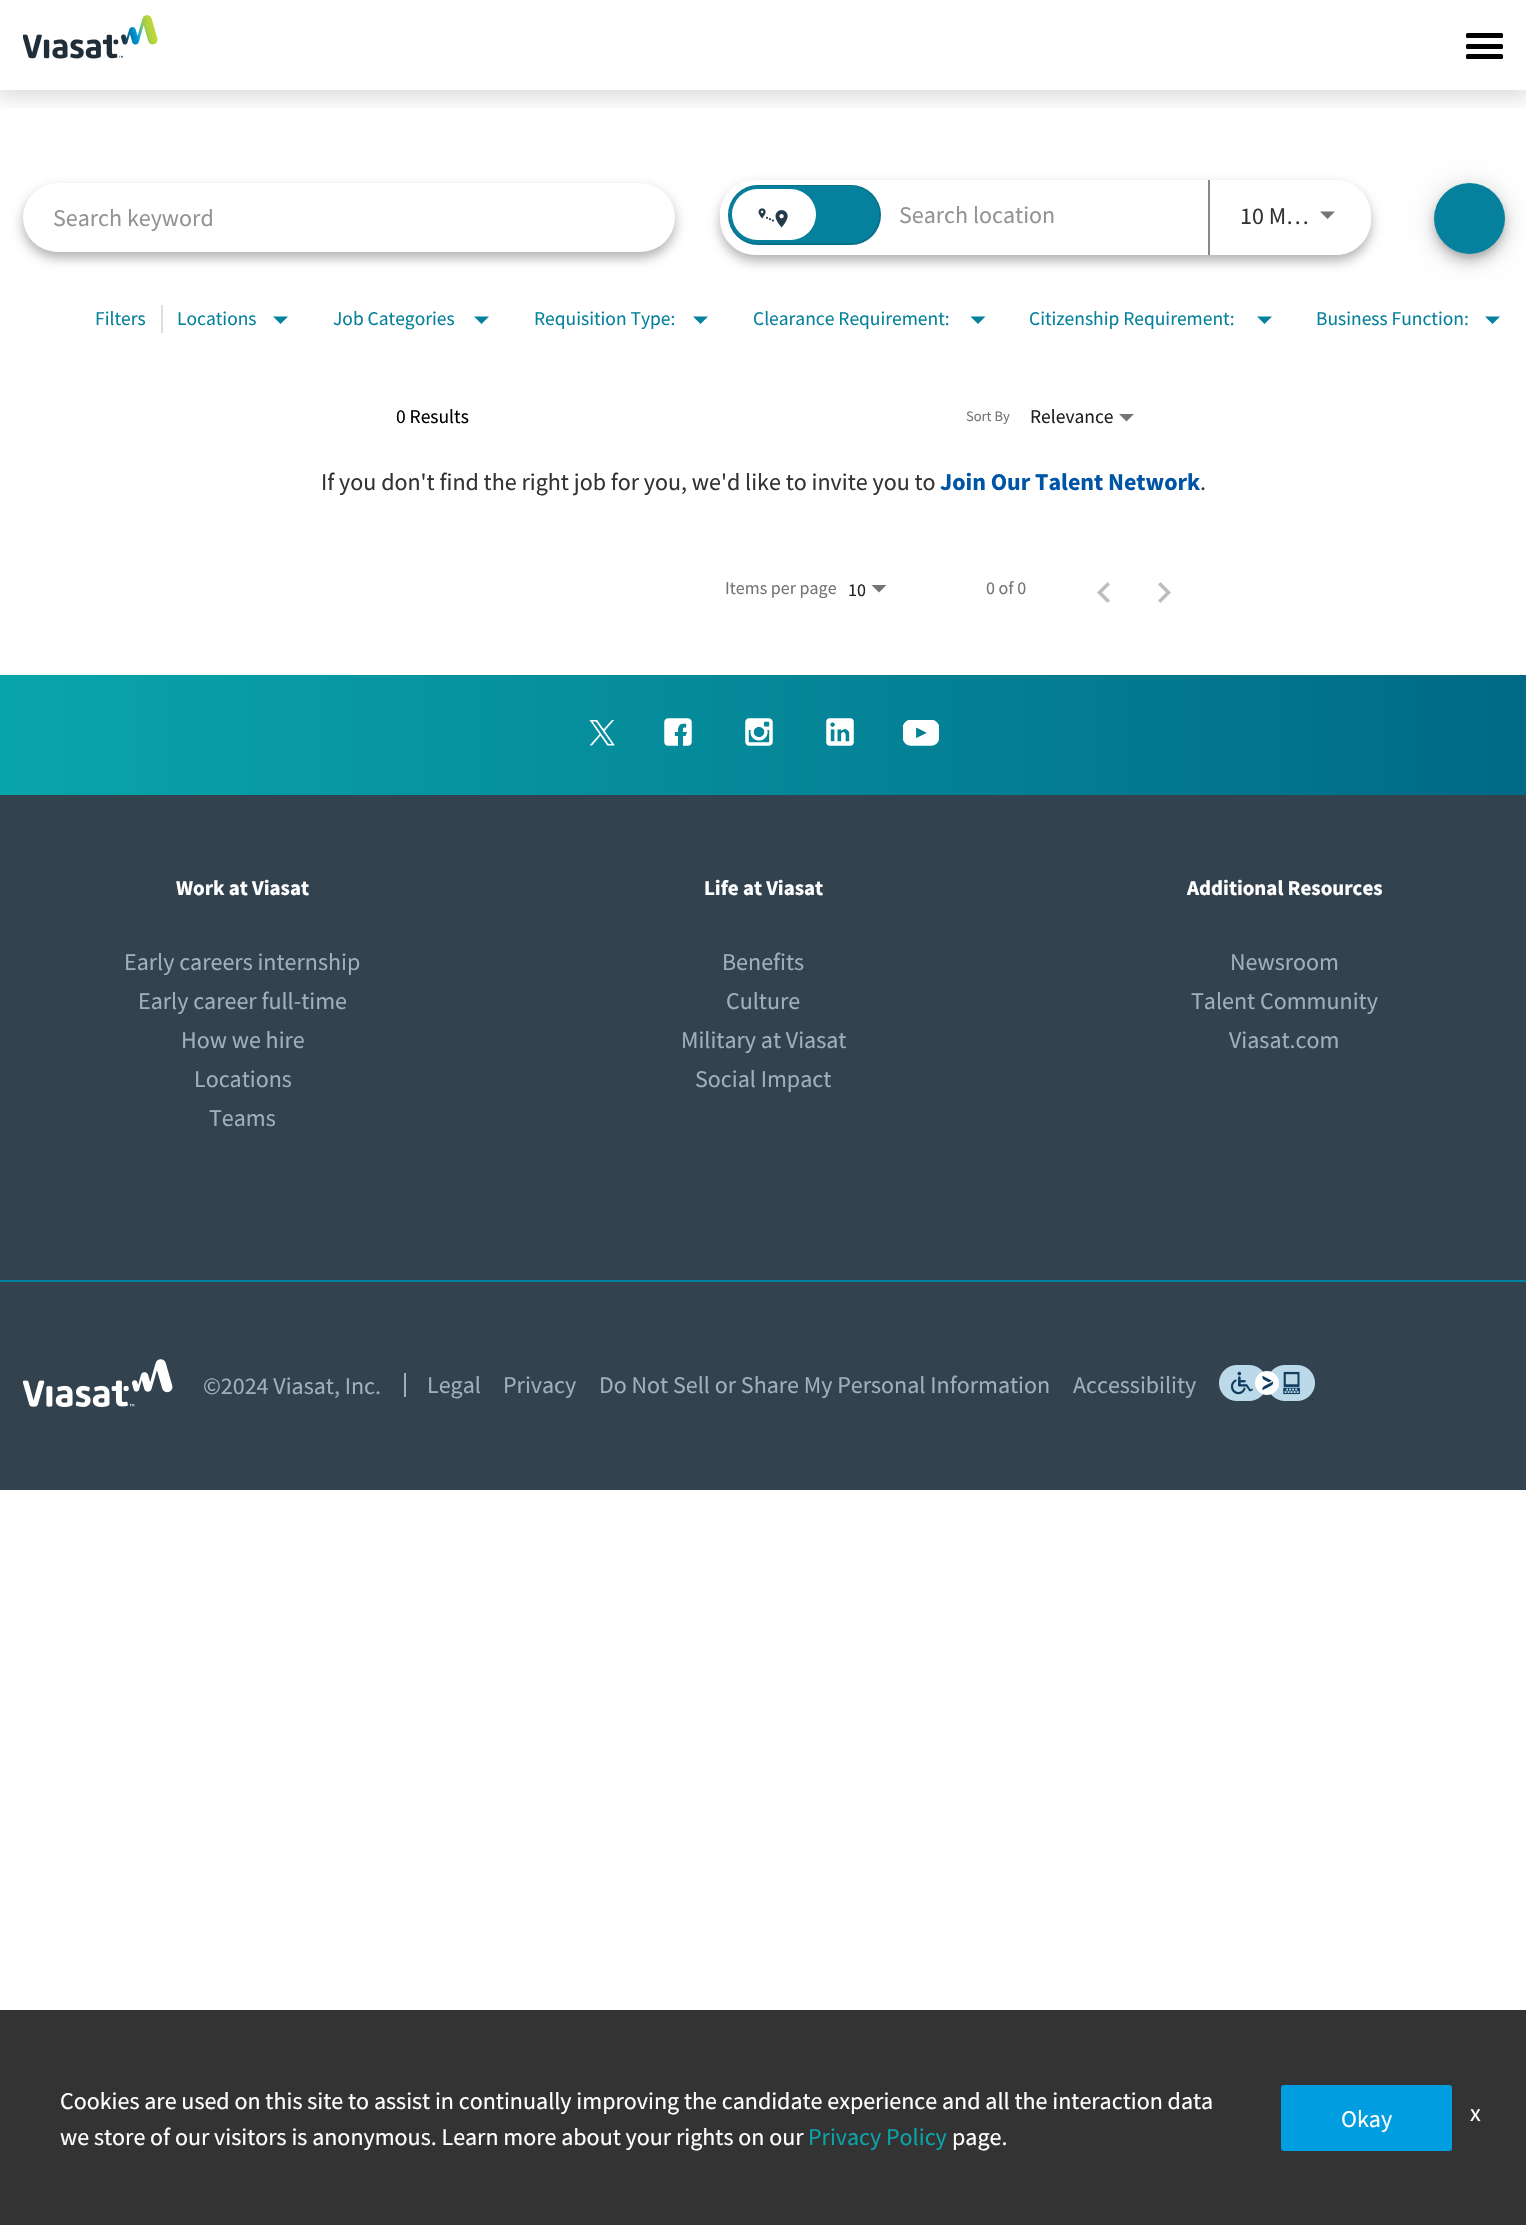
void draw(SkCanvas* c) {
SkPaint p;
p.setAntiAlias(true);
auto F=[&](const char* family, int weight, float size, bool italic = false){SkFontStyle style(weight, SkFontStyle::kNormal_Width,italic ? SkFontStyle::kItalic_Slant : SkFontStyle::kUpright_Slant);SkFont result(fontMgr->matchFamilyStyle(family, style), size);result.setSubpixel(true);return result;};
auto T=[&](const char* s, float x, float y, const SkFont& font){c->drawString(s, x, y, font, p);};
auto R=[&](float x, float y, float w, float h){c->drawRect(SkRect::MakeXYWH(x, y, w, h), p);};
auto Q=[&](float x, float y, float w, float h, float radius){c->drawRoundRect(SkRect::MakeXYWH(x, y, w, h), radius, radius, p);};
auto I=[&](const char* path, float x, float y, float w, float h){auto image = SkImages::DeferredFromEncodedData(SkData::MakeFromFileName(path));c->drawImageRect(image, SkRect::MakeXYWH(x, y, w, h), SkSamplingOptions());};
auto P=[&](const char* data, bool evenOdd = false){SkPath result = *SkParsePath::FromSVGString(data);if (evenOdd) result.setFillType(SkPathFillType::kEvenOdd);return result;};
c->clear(0xffffffff);
c->save();
c->clipRect(SkRect::MakeXYWH(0,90,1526,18));
p.setColor(0x1f000000);
p.setMaskFilter(SkMaskFilter::MakeBlur(kNormal_SkBlurStyle, 9));
c->drawRect(SkRect::MakeXYWH(-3,3,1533,96),p);
p.setMaskFilter(nullptr);
c->restore();
I("1.png",23,15,135,44);
p.setColor(0xff000000);
Q(1466,33,37,5,1.5);
Q(1466,44,37,5,1.5);
Q(1466,54,37,5,1.5);
p.setColor(0x4d000000);
p.setMaskFilter(SkMaskFilter::MakeBlur(kNormal_SkBlurStyle, 6));
c->drawRoundRect(SkRect::MakeXYWH(23,189,652,69),34.5,34.5,p);
p.setMaskFilter(nullptr);
p.setColor(0xffffffff);
Q(23,183,652,69,34.5);
auto f1 = F("Source Sans Pro",400,24);
p.setColor(0xff949494);
T("Search keyword",53,226,f1);
c->save();
c->clipPath(P("M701 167h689v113h-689zm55 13h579c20 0 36 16 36 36v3c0 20-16 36-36 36h-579c-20 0-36-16-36-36v-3c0-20 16-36 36-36z",true),true);
p.setColor(0x4d000000);
p.setMaskFilter(SkMaskFilter::MakeBlur(kNormal_SkBlurStyle, 6));
c->drawRoundRect(SkRect::MakeXYWH(720,186,651,75),36,36,p);
p.setMaskFilter(nullptr);
c->restore();
p.setColor(0xffffffff);
Q(720,180,476,69,34.5);
Q(720,180,168,69,34.5);
p.setColor(0xff06819d);
Q(728,185,153,60,30);
p.setStroke(true);
p.setStrokeWidth(2);
p.setColor(0x1f000000);
c->drawRoundRect(SkRect::MakeXYWH(729,186,151,58),29,29,p);
p.setStroke(false);
p.setColor(0xff06819d);
c->drawPath(P("M757.5 186h61.5v57h-61.5c-15.5 0-28.5-13-28.5-28.5c0-15.5 13-28.5 28.5-28.5z"),p);
p.setColor(0xffffffff);
Q(732,189,84,51,25.5);
I("2.png",758,208,30,20);
p.setColor(0xff06819d);
c->drawPath(P("M819 186h31.5c15.5 0 28.5 13 28.5 28.5c0 15.5-13 28.5-28.5 28.5h-31.5z"),p);
p.setColor(0xff949494);
T("Search location",899,223,f1);
p.setColor(0xffffffff);
c->drawPath(P("M1208 180h127c20 0 36 16 36 36v3c0 20-16 36-36 36h-127z"),p);
p.setColor(0xff888888);
R(1208,180,2,75);
p.setColor(0xff333333);
T("10 M…",1240,224,f1);
p.setColor(0xff757575);
c->drawPath(P("M1320 211.5h15l-7.5 7.5z"),p);
p.setColor(0x1f000000);
p.setMaskFilter(SkMaskFilter::MakeBlur(kNormal_SkBlurStyle, 13.5));
c->drawRoundRect(SkRect::MakeXYWH(1434,185,71,70),35,35,p);
p.setMaskFilter(nullptr);
p.setColor(0x24000000);
p.setMaskFilter(SkMaskFilter::MakeBlur(kNormal_SkBlurStyle, 7.5));
c->drawRoundRect(SkRect::MakeXYWH(1434,192,71,71),35.5,35.5,p);
p.setMaskFilter(nullptr);
p.setColor(0x33000000);
p.setMaskFilter(SkMaskFilter::MakeBlur(kNormal_SkBlurStyle, 4));
c->drawRoundRect(SkRect::MakeXYWH(1436,189,67,68),33.5,33.5,p);
p.setMaskFilter(nullptr);
p.setColor(0xff06819d);
c->drawCircle(1469.5,218.5,35.5,p);
p.setColor(0xffdddddd);
R(161,305,2,28);
auto f2 = F("Source Sans Pro",400,19.5);
p.setColor(0xff06819d);
T("Filters",95,325,f2);
T("Locations",177,325,f2);
c->drawPath(P("M273 316.5h15l-7.5 7.5z"),p);
T("Job Categories",333,325,f2);
c->drawPath(P("M474 316.5h15l-7.5 7.5z"),p);
T("Requisition Type:",534,325,f2);
c->drawPath(P("M693 316.5h15l-7.5 7.5z"),p);
T("Clearance Requirement:",753,325,f2);
c->drawPath(P("M970.5 316.5h15l-7.5 7.5z"),p);
T("Citizenship Requirement:",1029,325,f2);
c->drawPath(P("M1257 316.5h15l-7.5 7.5z"),p);
T("Business Function:",1316,325,f2);
c->drawPath(P("M1485 316.5h15l-7.5 7.5z"),p);
p.setColor(0xff000000);
T("0 Results",396,423,f2);
auto f3 = F("Source Sans Pro",400,14.5);
p.setColor(0xff757575);
T("Sort By",966,421,f3);
p.setColor(0xff212121);
T("Relevance",1030,423,f2);
p.setColor(0xff757575);
c->drawPath(P("M1119 414h15l-7.5 7.5z"),p);
p.setColor(0xff333333);
T("If you don't find the right job for you, we'd like to invite you to",321,490,f1);
auto f4 = F("Source Sans Pro",700,24);
p.setColor(0xff0054a6);
T("Join Our Talent Network",940,490,f4);
p.setColor(0xff333333);
T(".",1200,490,f1);
auto f5 = F("Source Sans Pro",400,18);
p.setColor(0xff757575);
T("Items per page",725,594,f5);
p.setColor(0xff212121);
T("10",848,596,f5);
p.setColor(0xff757575);
c->drawPath(P("M871.5 585h15l-7.5 7.5z"),p);
T("0 of 0",986,594,f5);
p.setColor(0xffbdbdbd);
c->drawPath(P("M1110 584.5l-2.5-2.5l-10.5 10.5l10.5 10.5l2.5-2.5l-8-8z"),p);
c->drawPath(P("M1160.5 582l-2.5 2.5l8 8l-8 8l2.5 2.5l10.5-10.5z"),p);
p.setColor(0xff32424e);
R(0,795,1526,695);
{
const SkColor colors[] = {0xff0aa5ab,0xff006a86};
const float stops[] = {0,1};
const SkPoint ends[] = {{0,735}, {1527,735}};
p.setShader(SkGradientShader::MakeLinear(ends, colors, stops, 2, SkTileMode::kClamp));
p.setAlpha(255);
}
R(0,675,1526,120);
I("3.png",589,720,26,26);
I("4.png",664,718,28,28);
I("5.png",745,718,28,28);
I("6.png",826,718,28,28);
I("7.png",903,720,36,26);
auto f6 = F("Source Sans Pro",700,21);
p.setShader(nullptr);
p.setColor(0xffffffff);
T("Work at Viasat",176,895,f6);
p.setColor(0xff9fafbc);
T("Early careers internship",124,970,f1);
T("Early career full-time",138,1009,f1);
T("How we hire",181,1048,f1);
T("Locations",194,1087,f1);
T("Teams",209,1126,f1);
p.setColor(0xffffffff);
T("Life at Viasat",704,895,f6);
p.setColor(0xff9fafbc);
T("Benefits",722,970,f1);
T("Culture",726,1009,f1);
T("Military at Viasat",681,1048,f1);
T("Social Impact",695,1087,f1);
p.setColor(0xffffffff);
T("Additional Resources",1187,895,f6);
p.setColor(0xff9fafbc);
T("Newsroom",1230,970,f1);
T("Talent Community",1191,1009,f1);
T("Viasat.com",1229,1048,f1);
p.setColor(0xff00819d);
R(0,1280,1526,2);
I("8.png",23,1359,150,48);
p.setColor(0xff9fafbc);
R(404,1373,2,24);
T("©2024 Viasat, Inc.",203,1394,f1);
T("Legal",427,1393,f1);
T("Privacy",503,1393,f1);
T("Do Not Sell or Share My Personal Information",599,1393,f1);
T("Accessibility",1073,1393,f1);
I("9.png",1219,1365,96,36);
p.setColor(0xff333333);
R(0,2010,1526,215);
p.setColor(0xffffffff);
T("Cookies are used on this site to assist in continually improving the candidate experience and all the interaction data",60,2109,f1);
T("we store of our visitors is anonymous. Learn more about your rights on our",60,2145,f1);
p.setColor(0xff0ba4ab);
T("Privacy Policy",808,2145,f1);
p.setColor(0xffffffff);
T("page.",952,2145,f1);
p.setColor(0xff009de0);
Q(1281,2085,171,66,3);
p.setColor(0xffffffff);
T("Okay",1341,2127,f1);
T("x",1470,2121,f1);
}
